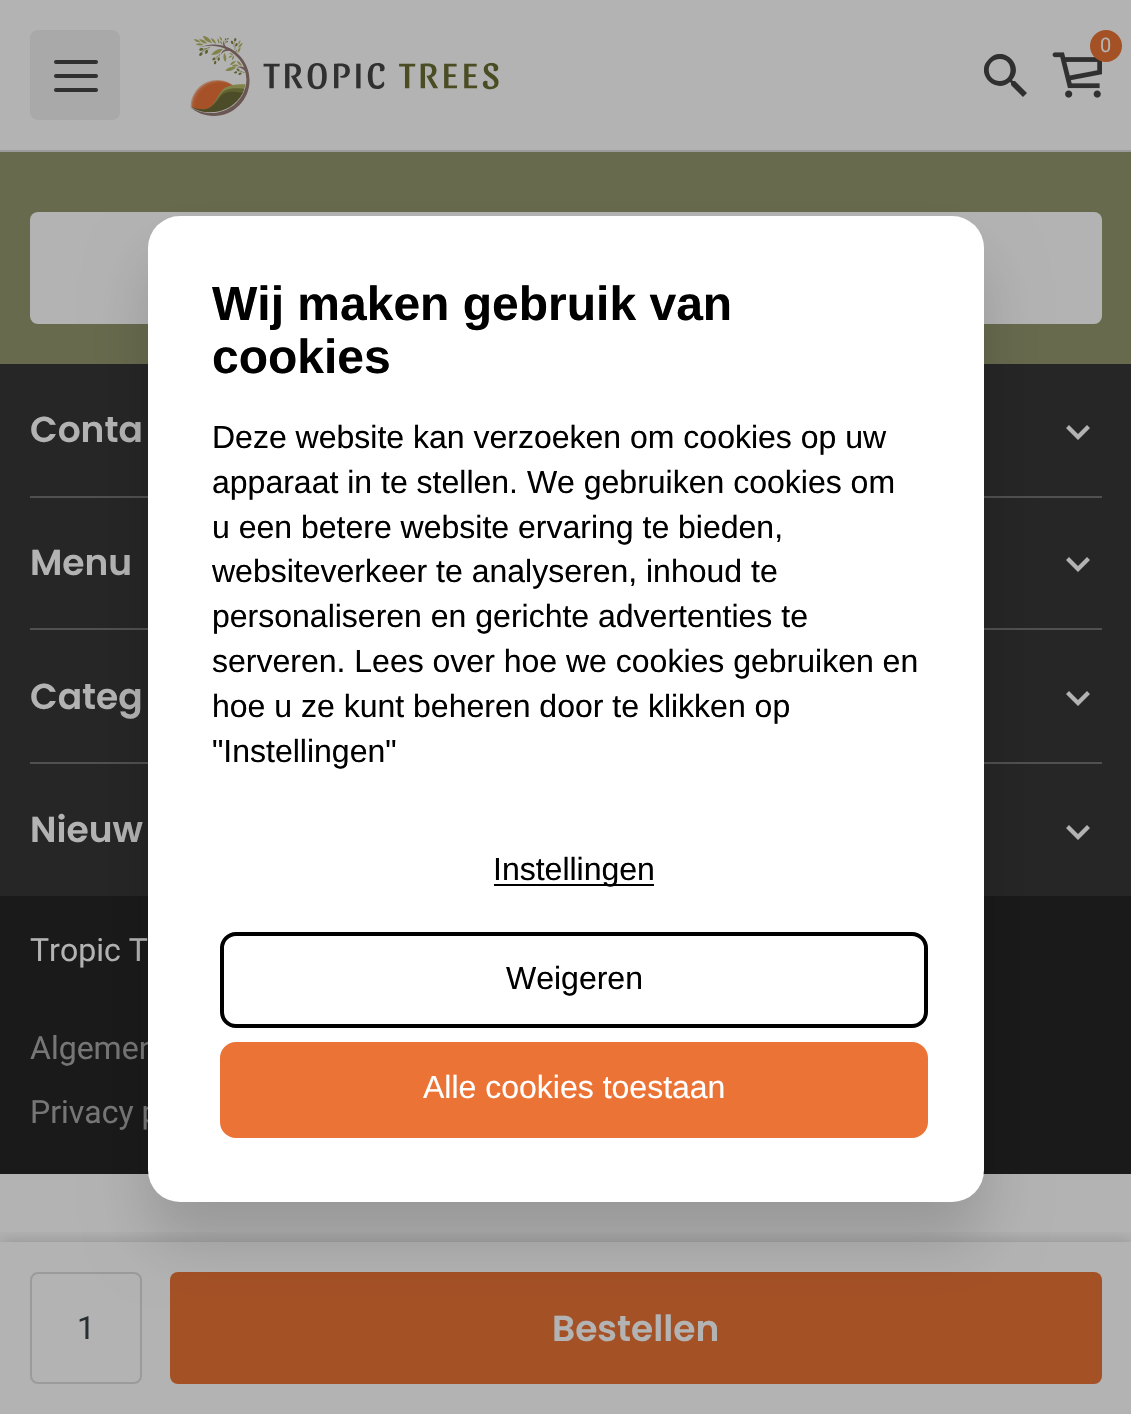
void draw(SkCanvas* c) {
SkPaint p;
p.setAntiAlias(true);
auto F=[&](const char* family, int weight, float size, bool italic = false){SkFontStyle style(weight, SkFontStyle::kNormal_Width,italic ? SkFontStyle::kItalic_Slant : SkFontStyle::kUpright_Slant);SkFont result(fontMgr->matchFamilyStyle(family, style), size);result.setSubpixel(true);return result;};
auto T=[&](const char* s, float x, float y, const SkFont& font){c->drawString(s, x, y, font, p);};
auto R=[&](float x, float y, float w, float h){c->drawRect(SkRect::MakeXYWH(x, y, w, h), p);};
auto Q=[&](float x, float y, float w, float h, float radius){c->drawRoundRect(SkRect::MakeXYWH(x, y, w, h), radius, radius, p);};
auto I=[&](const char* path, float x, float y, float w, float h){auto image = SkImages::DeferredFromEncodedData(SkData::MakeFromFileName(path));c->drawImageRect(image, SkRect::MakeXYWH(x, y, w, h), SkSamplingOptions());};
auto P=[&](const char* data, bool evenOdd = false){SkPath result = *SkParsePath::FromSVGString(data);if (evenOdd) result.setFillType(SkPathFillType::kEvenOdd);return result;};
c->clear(0xffb3b3b3);
p.setColor(0xff9b9b9b);
R(0,150,1131,2);
p.setColor(0xffa9a9a9);
Q(30,30,90,90,8);
p.setColor(0xff303030);
Q(54,74,44,4,2);
Q(54,60,44,4,2);
Q(54,88,44,4,2);
I("1.png",190,36,309,80);
I("2.png",1052,52,50,46);
p.setColor(0xffa55126);
c->drawCircle(1106,46,16,p);
auto f1 = F("Roboto",400,20);
p.setColor(0xffb3b3b3);
T("0",1100,52,f1);
c->save();
c->clipRect(SkRect::MakeXYWH(984,54,44,44));
p.setColor(0xff303030);
c->drawPath(P("M1015 81h-2l-1-1c13-15-9-36-23-21c-15 14 6 36 21 23l1 1v2l12 12l4-4zm-15 0c-15 0-15-22 0-22c14 0 14 22 0 22z"),p);
c->restore();
p.setColor(0xff686a4e);
R(0,152,1131,212);
p.setColor(0xffb3b3b3);
Q(30,212,1072,112,8);
p.setColor(0xff262626);
R(0,364,1131,532);
p.setColor(0xff505050);
R(30,496,1072,2);
auto f2 = F("Poppins",600,36);
p.setColor(0xffb3b3b3);
T("Conta",30,442,f2);
c->drawPath(P("M1069 425l-3 3l12 12l12-12l-3-3l-9 9z"),p);
p.setColor(0xff505050);
R(30,628,1072,2);
p.setColor(0xffb3b3b3);
T("Menu",30,575,f2);
c->drawPath(P("M1069 557l-3 3l12 12l12-12l-3-3l-9 9z"),p);
p.setColor(0xff505050);
R(30,762,1072,2);
p.setColor(0xffb3b3b3);
T("Categ",30,709,f2);
c->drawPath(P("M1069 691l-3 3l12 12l12-12l-3-3l-9 9z"),p);
T("Nieuw",30,842,f2);
c->drawPath(P("M1069 825l-3 3l12 12l12-12l-3-3l-9 9z"),p);
p.setColor(0xff1a1a1a);
R(0,896,1131,278);
auto f3 = F("Roboto",400,32);
p.setColor(0xffb3b3b3);
T("Tropic T",30,961,f3);
p.setColor(0xff767676);
T("Algemen",30,1059,f3);
T("Privacy p",30,1123,f3);
c->save();
c->clipRect(SkRect::MakeXYWH(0,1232,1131,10));
p.setColor(0x33000000);
p.setMaskFilter(SkMaskFilter::MakeBlur(kNormal_SkBlurStyle, 8));
c->drawRect(SkRect::MakeXYWH(0,1242,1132,172),p);
p.setMaskFilter(nullptr);
c->restore();
p.setStroke(true);
p.setStrokeWidth(2);
p.setColor(0xff9b9b9b);
c->drawRoundRect(SkRect::MakeXYWH(31,1273,110,110),7,7,p);
p.setStroke(false);
p.setColor(0xffa55126);
Q(170,1272,932,112,8);
p.setColor(0x26000000);
p.setMaskFilter(SkMaskFilter::MakeBlur(kNormal_SkBlurStyle, 30));
c->drawRoundRect(SkRect::MakeXYWH(148,256,836,986),32,32,p);
p.setMaskFilter(nullptr);
p.setColor(0xffffffff);
Q(148,216,836,986,32);
auto f4 = F("Liberation Sans",700,48);
p.setColor(0xff000000);
T("Wij maken gebruik van",212,320,f4);
T("cookies",212,373,f4);
auto f5 = F("Liberation Sans",400,32);
T("Deze website kan verzoeken om cookies op uw",212,448,f5);
T("apparaat in te stellen. We gebruiken cookies om",212,493,f5);
T("u een betere website ervaring te bieden,",212,538,f5);
T("websiteverkeer te analyseren, inhoud te",212,582,f5);
T("personaliseren en gerichte advertenties te",212,627,f5);
T("serveren. Lees over hoe we cookies gebruiken en",212,672,f5);
T("hoe u ze kunt beheren door te klikken op",212,717,f5);
T("\"Instellingen\"",212,762,f5);
R(494,884,160,2);
T("Instellingen",493,880,f5);
p.setStroke(true);
p.setStrokeWidth(4);
c->drawRoundRect(SkRect::MakeXYWH(222,934,704,92),14,14,p);
p.setStroke(false);
T("Weigeren",506,989,f5);
p.setColor(0xffec7336);
c->drawRoundRect(SkRect::MakeXYWH(222,1044,704,92),14,14,p);
p.setStroke(true);
c->drawRoundRect(SkRect::MakeXYWH(222,1044,704,92),14,14,p);
p.setStroke(false);
p.setColor(0xffffffff);
T("Alle cookies toestaan",423,1098,f5);
p.setColor(0xff282f31);
T("1",77,1339,f3);
p.setColor(0xffb3b3b3);
T("Bestellen",552,1341,f2);
}
